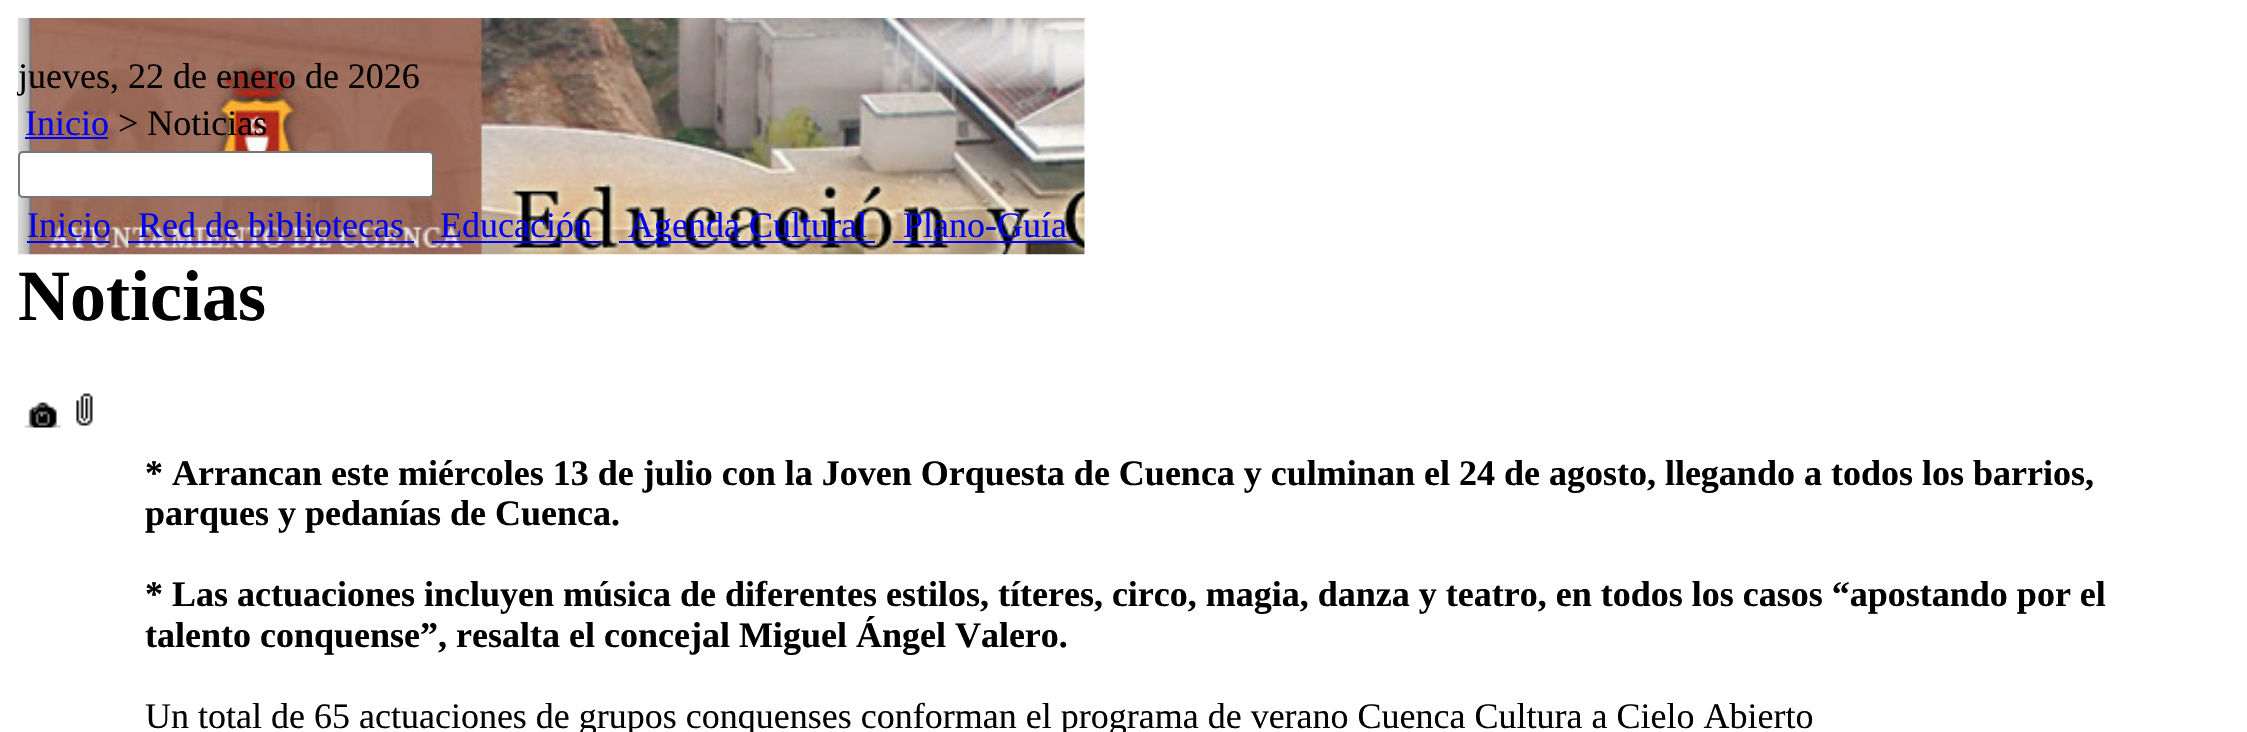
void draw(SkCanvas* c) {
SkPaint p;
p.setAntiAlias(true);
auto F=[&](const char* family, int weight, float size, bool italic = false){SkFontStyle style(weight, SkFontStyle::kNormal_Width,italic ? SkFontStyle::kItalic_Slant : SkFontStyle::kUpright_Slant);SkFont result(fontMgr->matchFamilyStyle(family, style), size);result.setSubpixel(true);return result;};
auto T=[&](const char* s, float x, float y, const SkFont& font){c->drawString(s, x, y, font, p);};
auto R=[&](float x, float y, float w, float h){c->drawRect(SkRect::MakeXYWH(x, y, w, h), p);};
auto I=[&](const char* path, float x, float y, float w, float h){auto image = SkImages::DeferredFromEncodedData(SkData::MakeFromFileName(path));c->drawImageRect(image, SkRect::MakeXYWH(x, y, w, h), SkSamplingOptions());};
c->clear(0xffffffff);
I("1.png",18,18,1067,237);
auto f1 = F("Liberation Serif",400,36);
p.setColor(0xff000000);
T("jueves, 22 de enero de 2026",18,88,f1);
p.setColor(0xff0000ee);
T("Inicio",25,135,f1);
R(25,137,83,2);
p.setColor(0xff000000);
T("> Noticias",118,135,f1);
p.setColor(0xffffffff);
c->drawRoundRect(SkRect::MakeXYWH(19,152,414,45),4,4,p);
p.setStroke(true);
p.setStrokeWidth(2);
p.setColor(0xff767676);
c->drawRoundRect(SkRect::MakeXYWH(19,152,414,45),4,4,p);
p.setStroke(false);
p.setColor(0xff0000ee);
T("Inicio",27,237,f1);
R(27,241,83,2);
T("Red de bibliotecas",138,237,f1);
R(128,241,286,2);
T("Educación",440,237,f1);
R(432,241,169,2);
R(619,241,256,2);
T("Agenda Cultural",628,237,f1);
T("Plano-Guía",903,237,f1);
R(893,241,183,2);
auto f2 = F("Liberation Serif",700,72);
p.setColor(0xff000000);
T("Noticias",18,320,f2);
I("2.png",24,402,37,26);
I("3.png",76,393,17,33);
auto f3 = F("Liberation Serif",700,36);
T("* Arrancan este miércoles 13 de julio con la Joven Orquesta de Cuenca y culminan el 24 de agosto, llegando a todos los barrios,",145,485,f3);
T("parques y pedanías de Cuenca.",145,525,f3);
T("* Las actuaciones incluyen música de diferentes estilos, títeres, circo, magia, danza y teatro, en todos los casos “apostando por el",145,606,f3);
T("talento conquense”, resalta el concejal Miguel Ángel Valero.",145,647,f3);
T("Un total de 65 actuaciones de grupos conquenses conforman el programa de verano Cuenca Cultura a Cielo Abierto",145,728,f1);
}
